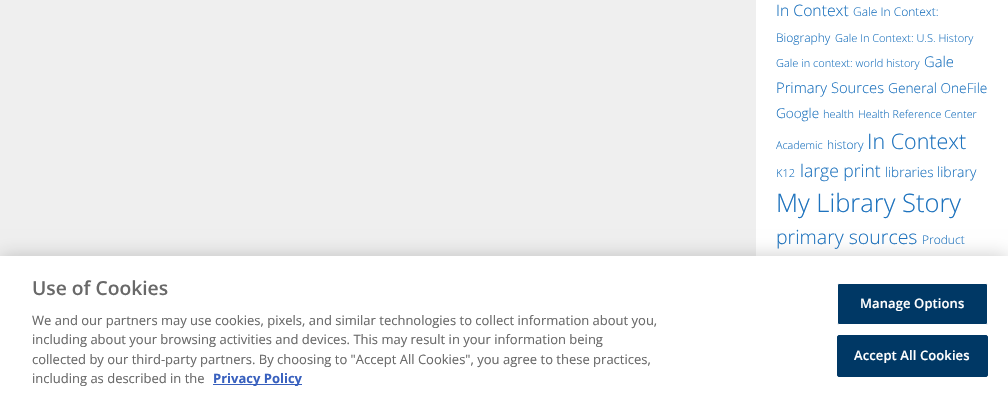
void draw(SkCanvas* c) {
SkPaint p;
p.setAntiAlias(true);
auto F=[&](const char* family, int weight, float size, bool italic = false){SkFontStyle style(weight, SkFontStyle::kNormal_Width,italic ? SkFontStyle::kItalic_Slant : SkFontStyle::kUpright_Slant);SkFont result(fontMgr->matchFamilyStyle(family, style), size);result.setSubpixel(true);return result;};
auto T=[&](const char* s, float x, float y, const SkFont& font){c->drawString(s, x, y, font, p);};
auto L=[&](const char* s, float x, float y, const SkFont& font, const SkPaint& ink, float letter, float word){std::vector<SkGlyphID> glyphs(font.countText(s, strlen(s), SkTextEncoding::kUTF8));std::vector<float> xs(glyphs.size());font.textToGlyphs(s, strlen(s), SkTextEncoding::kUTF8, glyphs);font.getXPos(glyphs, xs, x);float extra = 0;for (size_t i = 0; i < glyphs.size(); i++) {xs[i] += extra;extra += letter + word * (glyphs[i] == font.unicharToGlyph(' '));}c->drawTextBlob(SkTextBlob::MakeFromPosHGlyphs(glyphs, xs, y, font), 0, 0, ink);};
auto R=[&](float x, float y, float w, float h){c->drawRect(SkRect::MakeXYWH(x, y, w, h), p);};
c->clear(0xffefefef);
p.setColor(0xffffffff);
R(756,0,252,256);
auto f1 = F("Open Sans",300,15.75);
p.setColor(0xff1e73be);
T("In Context",776,16,f1);
auto f2 = F("Open Sans",300,12);
T("Gale In Context:",853,16,f2);
T("Biography",776,42,f2);
auto f3 = F("Open Sans",300,11);
T("Gale In Context: U.S. History",835,42,f3);
T("Gale in context: world history",776,67,f3);
auto f4 = F("Open Sans",300,14.75);
T("Gale",924,67,f4);
T("Primary Sources",776,93,f4);
auto f5 = F("Open Sans",300,13.75);
T("General OneFile",888,93,f5);
auto f6 = F("Open Sans",300,13.5);
T("Google",776,118,f6);
T("health",823,118,f3);
auto f7 = F("Open Sans",300,10.75);
T("Health Reference Center",858,118,f7);
T("Academic",776,149,f7);
T("history",827,149,f2);
auto f8 = F("Open Sans",300,21.5);
T("In Context",867,149,f8);
T("K12",776,177,f3);
auto f9 = F("Open Sans",300,17.5);
T("large print",800,177,f9);
T("libraries",885,177,f6);
auto f10 = F("Open Sans",300,14);
T("library",937,177,f10);
auto f11 = F("Open Sans",300,25.5);
T("My Library Story",776,212,f11);
auto f12 = F("Open Sans",300,19.5);
T("primary sources",776,244,f12);
T("Product",922,244,f2);
p.setColor(0x33000000);
p.setMaskFilter(SkMaskFilter::MakeBlur(kNormal_SkBlurStyle, 9));
c->drawRect(SkRect::MakeXYWH(0,256,1008,143),p);
p.setMaskFilter(nullptr);
p.setColor(0xffffffff);
R(0,256,1008,143);
auto f13 = F("Open Sans",600,19.25);
p.setColor(0xff696969);
T("Use of Cookies",32,295,f13);
auto f14 = F("Open Sans",400,13);
T("We and our partners may use cookies, pixels, and similar technologies to collect information about you,",32,325,f14);
T("including about your browsing activities and devices. This may result in your information being",32,344,f14);
T("collected by our third-party partners. By choosing to \"Accept All Cookies\", you agree to these practices,",32,364,f14);
T("including as described in the",32,383,f14);
p.setColor(0xff3860be);
R(213,384,89,1);
auto f15 = F("Open Sans",700,13);
T("Privacy Policy",213,383,f15);
p.setColor(0xff003865);
c->drawRoundRect(SkRect::MakeXYWH(837.5,283.5,150,41),1.5,1.5,p);
p.setStroke(true);
p.setStrokeWidth(1);
p.setColor(0xffffffff);
c->drawRoundRect(SkRect::MakeXYWH(837.5,283.5,150,41),1.5,1.5,p);
auto f16 = F("Open Sans",600,13);
p.setStroke(false);
L("Manage Options",860,308,f16,p,.1,0);
p.setColor(0xff003865);
c->drawRoundRect(SkRect::MakeXYWH(837.5,335.5,150,41),1.5,1.5,p);
p.setStroke(true);
c->drawRoundRect(SkRect::MakeXYWH(837.5,335.5,150,41),1.5,1.5,p);
p.setStroke(false);
p.setColor(0xffffffff);
L("Accept All Cookies",854,360,f16,p,.1,0);
}
